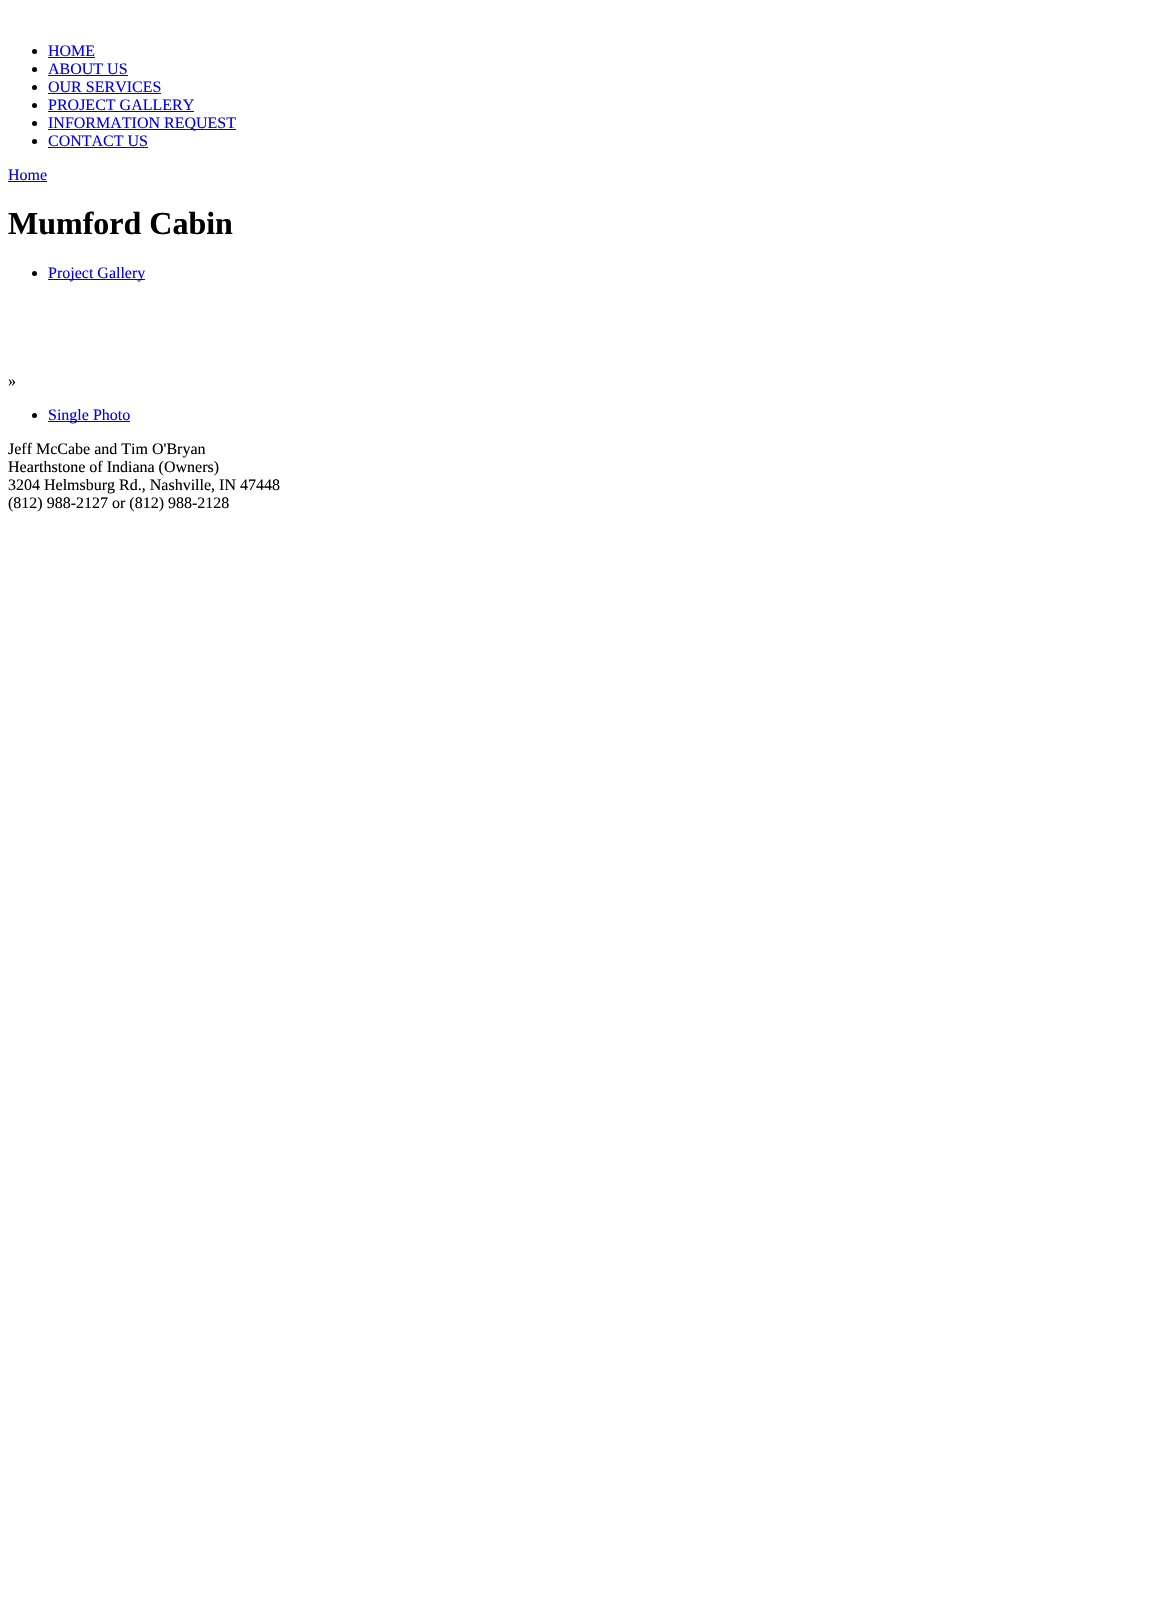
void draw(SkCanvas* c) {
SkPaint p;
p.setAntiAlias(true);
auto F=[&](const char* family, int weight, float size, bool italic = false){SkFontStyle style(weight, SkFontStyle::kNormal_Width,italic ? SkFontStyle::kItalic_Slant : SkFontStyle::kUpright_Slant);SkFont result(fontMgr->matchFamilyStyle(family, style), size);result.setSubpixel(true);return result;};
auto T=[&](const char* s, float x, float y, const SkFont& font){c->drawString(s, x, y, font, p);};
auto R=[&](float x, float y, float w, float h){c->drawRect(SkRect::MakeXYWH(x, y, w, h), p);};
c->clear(0xffffffff);
p.setColor(0xff000000);
c->drawCircle(34.5,51.5,2.5,p);
auto f1 = F("Liberation Serif",400,16);
p.setColor(0xff0000ee);
T("HOME",48,56,f1);
R(48,57,47,1);
p.setColor(0xff000000);
c->drawCircle(34.5,69.5,2.5,p);
p.setColor(0xff0000ee);
T("ABOUT US",48,74,f1);
R(48,75,80,1);
p.setColor(0xff000000);
c->drawCircle(34.5,87.5,2.5,p);
p.setColor(0xff0000ee);
T("OUR SERVICES",48,92,f1);
R(48,93,113,1);
p.setColor(0xff000000);
c->drawCircle(34.5,105.5,2.5,p);
p.setColor(0xff0000ee);
T("PROJECT GALLERY",48,110,f1);
R(48,111,146,1);
p.setColor(0xff000000);
c->drawCircle(34.5,123.5,2.5,p);
p.setColor(0xff0000ee);
R(48,129,188,1);
T("INFORMATION REQUEST",48,128,f1);
p.setColor(0xff000000);
c->drawCircle(34.5,141.5,2.5,p);
p.setColor(0xff0000ee);
T("CONTACT US",48,146,f1);
R(48,147,100,1);
T("Home",8,180,f1);
R(8,181,39,1);
auto f2 = F("Liberation Serif",700,32);
p.setColor(0xff000000);
T("Mumford Cabin",8,234,f2);
c->drawCircle(34.5,273.5,2.5,p);
p.setColor(0xff0000ee);
R(48,279,97,1);
T("Project Gallery",48,278,f1);
p.setColor(0xff000000);
T("»",8,386,f1);
c->drawCircle(34.5,415.5,2.5,p);
p.setColor(0xff0000ee);
R(48,421,82,1);
T("Single Photo",48,420,f1);
p.setColor(0xff000000);
T("Jeff McCabe and Tim O'Bryan",8,454,f1);
T("Hearthstone of Indiana (Owners)",8,472,f1);
T("3204 Helmsburg Rd., Nashville, IN 47448",8,490,f1);
T("(812) 988-2127 or (812) 988-2128",8,508,f1);
}
